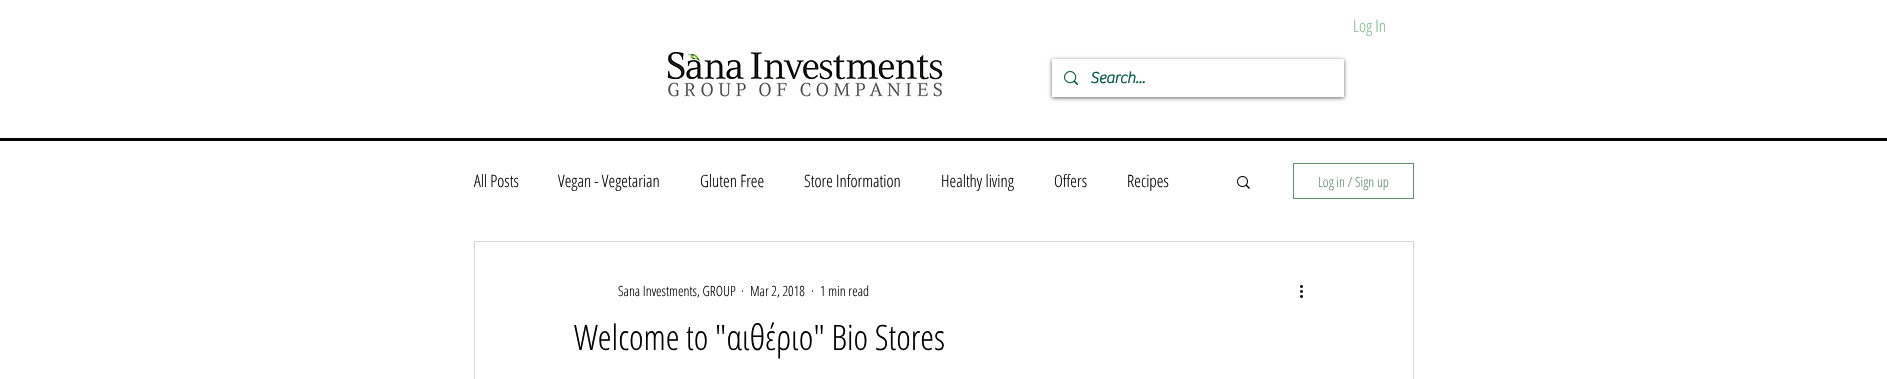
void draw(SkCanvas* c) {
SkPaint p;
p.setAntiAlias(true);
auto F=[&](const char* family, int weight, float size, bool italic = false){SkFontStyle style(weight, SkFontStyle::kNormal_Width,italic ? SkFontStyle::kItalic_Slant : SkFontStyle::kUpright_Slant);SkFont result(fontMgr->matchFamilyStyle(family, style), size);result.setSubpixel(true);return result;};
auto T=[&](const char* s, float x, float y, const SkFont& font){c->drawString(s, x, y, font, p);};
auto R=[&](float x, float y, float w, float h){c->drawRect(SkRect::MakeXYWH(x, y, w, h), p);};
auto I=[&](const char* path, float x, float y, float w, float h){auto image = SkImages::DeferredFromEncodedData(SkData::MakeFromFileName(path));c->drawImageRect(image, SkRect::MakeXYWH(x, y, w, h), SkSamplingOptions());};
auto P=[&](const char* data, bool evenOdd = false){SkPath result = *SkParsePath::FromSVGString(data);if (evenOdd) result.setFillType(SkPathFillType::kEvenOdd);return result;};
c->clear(0xffffffff);
auto f1 = F("Open Sans Condensed",300,17);
p.setColor(0xff80bd8d);
T("Log In",1353,32,f1);
I("1.png",667,50,276,47);
c->save();
c->clipPath(P("M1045 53h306v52h-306zm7 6h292v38h-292z",true),true);
p.setColor(0x99000000);
p.setMaskFilter(SkMaskFilter::MakeBlur(kNormal_SkBlurStyle, 2));
c->drawRect(SkRect::MakeXYWH(1052,60,292,38),p);
p.setMaskFilter(nullptr);
c->restore();
I("2.png",1064,71,14,14);
auto f2 = F("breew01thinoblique",700,16);
p.setColor(0xff065e48);
T("Search...",1090,83,f2);
p.setColor(0xff000000);
R(0,138,1887,3);
T("All Posts",474,187,f1);
T("Vegan - Vegetarian",558,187,f1);
T("Gluten Free",700,187,f1);
T("Store Information",804,187,f1);
T("Healthy living",941,187,f1);
T("Offers",1054,187,f1);
T("Recipes",1127,187,f1);
I("3.png",1237,176,13,13);
p.setStroke(true);
p.setStrokeWidth(1);
p.setColor(0xff608e6a);
c->drawRect(SkRect::MakeXYWH(1293.5,163.5,120,35),p);
auto f3 = F("Open Sans Condensed",300,14);
p.setStroke(false);
T("Log in / Sign up",1318,187,f3);
p.setStroke(true);
p.setColor(0xffd5d5d5);
c->drawRect(SkRect::MakeXYWH(474.5,241.5,939,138),p);
p.setStroke(false);
p.setColor(0xff000000);
T("Sana Investments, GROUP",618,296,f3);
T("·",741,296,f3);
T("Mar 2, 2018",750,296,f3);
T("·",811,296,f3);
T("1 min read",820,296,f3);
I("4.png",1300,285,3,13);
auto f4 = F("Open Sans Condensed",300,35);
T("Welcome to \"αιθέριο\" Bio Stores",574,350,f4);
}
